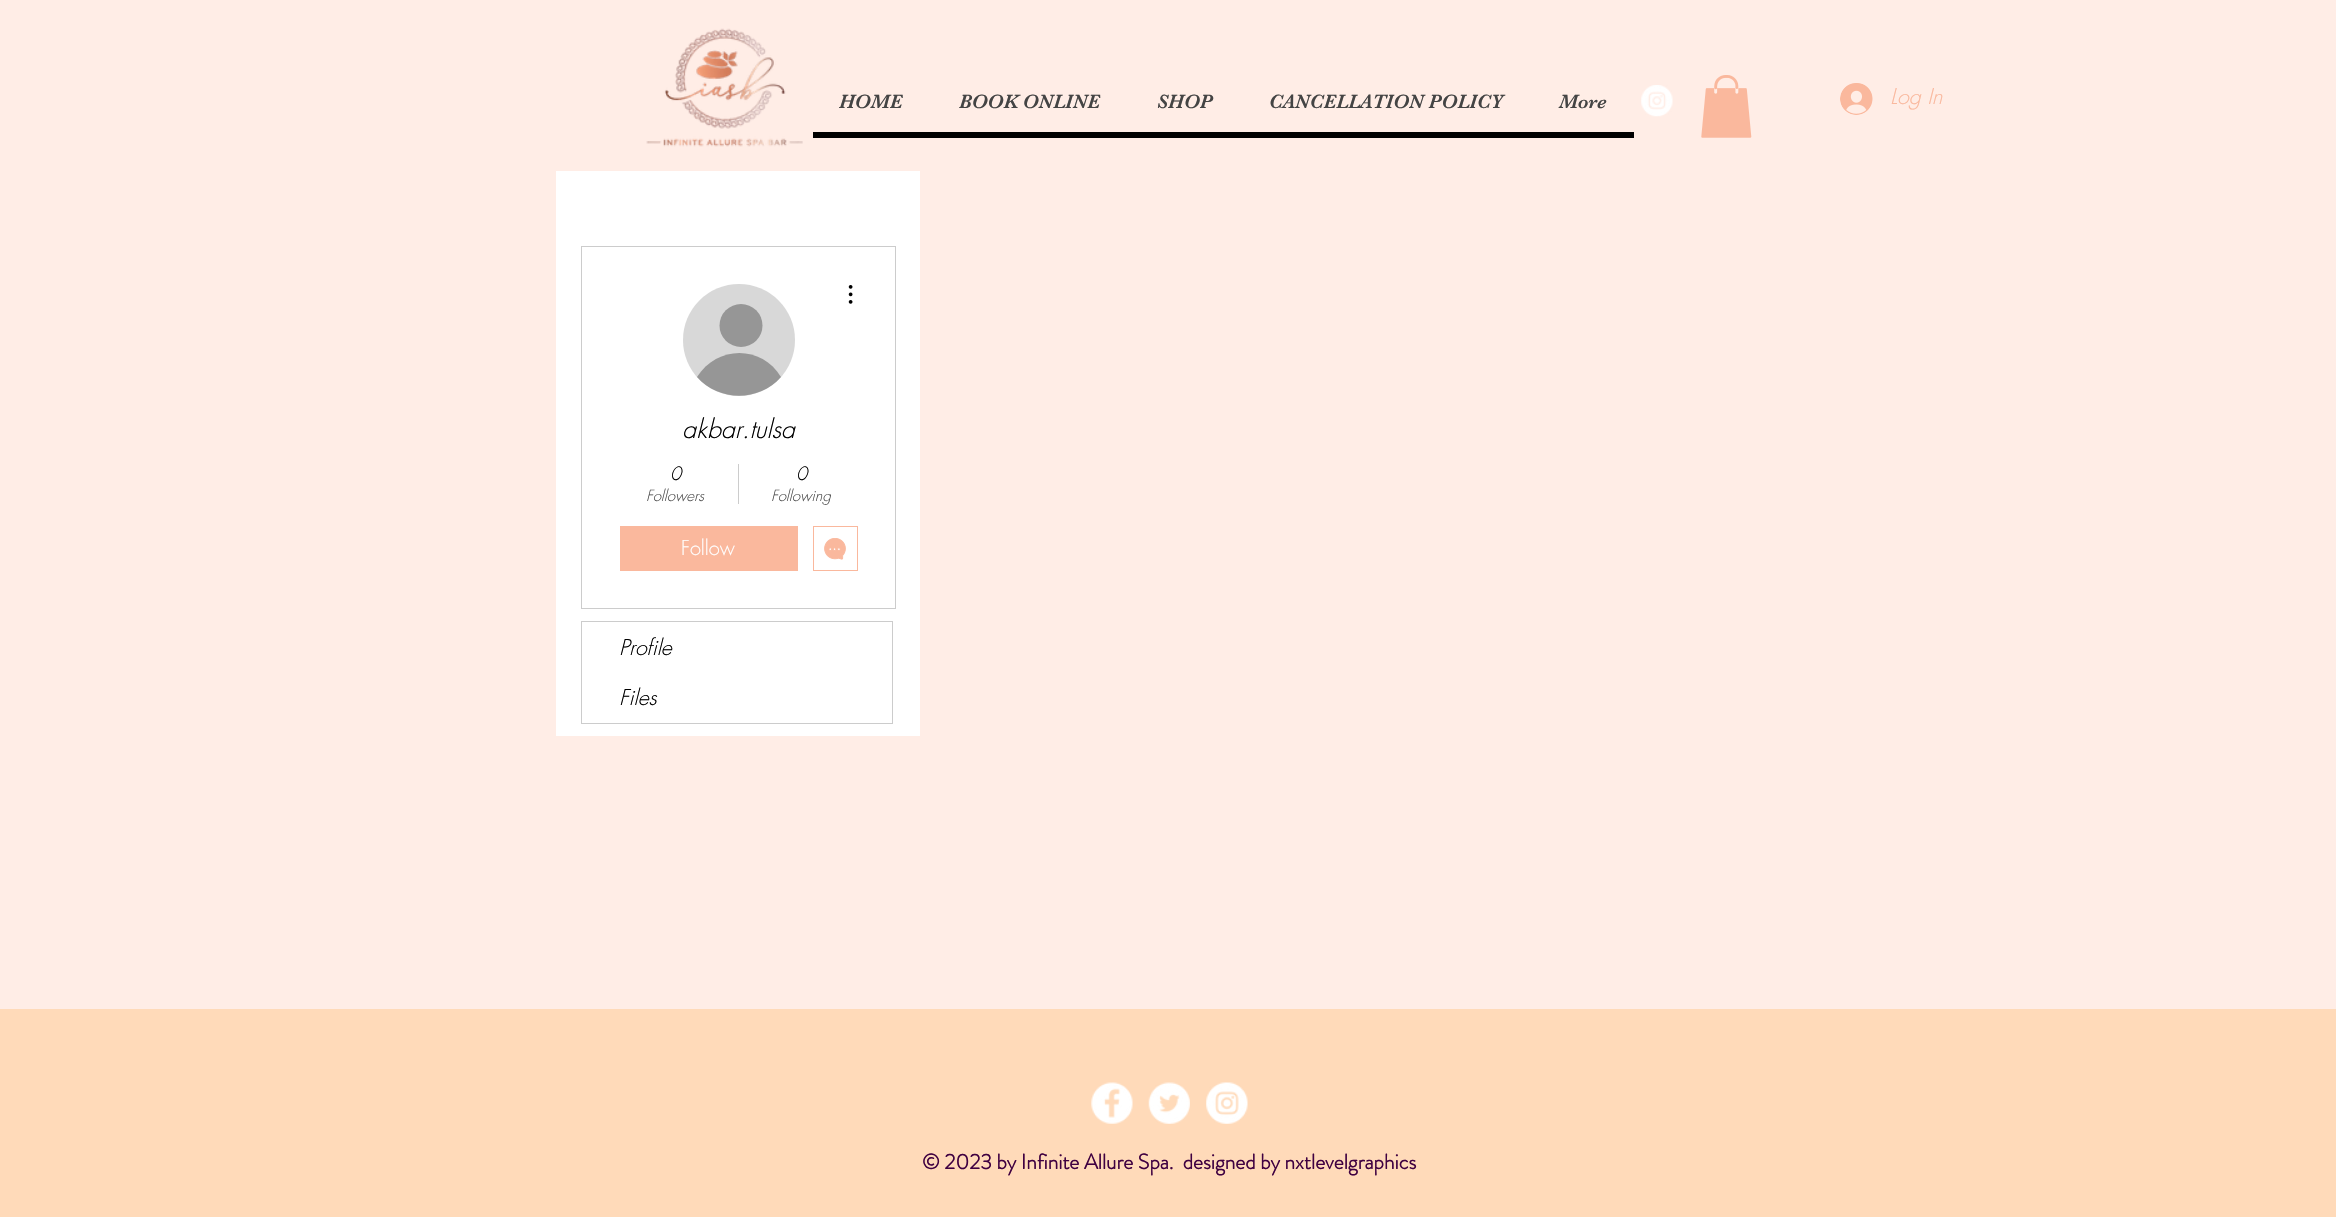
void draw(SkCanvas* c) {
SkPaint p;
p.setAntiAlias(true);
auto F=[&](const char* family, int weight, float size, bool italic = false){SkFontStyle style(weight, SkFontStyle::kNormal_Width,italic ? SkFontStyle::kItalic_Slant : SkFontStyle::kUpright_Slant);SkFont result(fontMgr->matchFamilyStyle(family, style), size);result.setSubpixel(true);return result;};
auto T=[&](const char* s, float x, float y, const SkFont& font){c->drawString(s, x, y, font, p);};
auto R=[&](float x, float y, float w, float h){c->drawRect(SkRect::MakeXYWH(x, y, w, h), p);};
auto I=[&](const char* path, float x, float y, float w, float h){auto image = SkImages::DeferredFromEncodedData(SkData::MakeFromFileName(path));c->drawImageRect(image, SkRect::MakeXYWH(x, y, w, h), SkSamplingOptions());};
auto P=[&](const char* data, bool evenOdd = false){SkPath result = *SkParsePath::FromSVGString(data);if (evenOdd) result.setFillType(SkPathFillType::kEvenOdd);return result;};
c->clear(0xffffede6);
I("1.png",646,28,157,119);
p.setColor(0xff000000);
c->drawPath(P("M813 132v6h821v-63v57z"),p);
auto f1 = F("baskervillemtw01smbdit",400,20);
p.setColor(0xff444444);
T("HOME",839,108,f1);
T("BOOK ONLINE",959,108,f1);
T("SHOP",1157,108,f1);
T("CANCELLATION POLICY",1269,108,f1);
T("More",1559,108,f1);
I("2.png",1641,85,32,32);
I("3.png",1701,75,51,63);
I("4.png",1840,83,33,32);
auto f2 = F("futura",300,21.25,true);
p.setColor(0xfffab89d);
T("Log In",1890,104,f2);
p.setColor(0xffffffff);
R(556,171,364,565);
p.setStroke(true);
p.setStrokeWidth(1);
p.setColor(0xffcccccc);
c->drawRect(SkRect::MakeXYWH(581.5,246.5,314,362),p);
p.setStroke(false);
p.setColor(0xffd8d8d8);
c->drawCircle(739,340,56,p);
p.setColor(0xff969696);
c->drawCircle(741,325.5,21.5,p);
c->drawPath(P("M781 377c-22 25-62 25-84 0c20-32 65-32 84 0z"),p);
I("5.png",848,285,5,19);
auto f3 = F("futura",300,25,true);
p.setColor(0xff000000);
T("akbar.tulsa",682,438,f3);
auto f4 = F("futura",300,18,true);
T("0",670,480,f4);
auto f5 = F("futura",300,15,true);
p.setColor(0xff4d4d4d);
T("Followers",646,501,f5);
p.setColor(0xffcccccc);
R(738,464,1,40);
p.setColor(0xff000000);
T("0",796,480,f4);
c->save();
c->clipRect(SkRect::MakeXYWH(771,486,60,20));
p.setColor(0xff4d4d4d);
T("Following",771,501,f5);
c->restore();
p.setColor(0xfffab89d);
R(620,526,178,45);
auto f6 = F("futura",300,20);
p.setColor(0xffffffff);
T("Follow",681,555,f6);
p.setStroke(true);
p.setColor(0xfffab89d);
c->drawRect(SkRect::MakeXYWH(813.5,526.5,44,44),p);
I("6.png",824,538,22,22);
p.setColor(0xffcccccc);
c->drawRect(SkRect::MakeXYWH(581.5,621.5,311,102),p);
p.setStroke(false);
p.setColor(0xff000000);
T("Profile",619,655,f2);
T("Files",619,705,f2);
p.setColor(0xffffdab9);
R(0,1009,2336,208);
I("7.png",1091,1082,42,42);
I("8.png",1148,1082,42,42);
I("9.png",1206,1082,42,42);
auto f7 = F("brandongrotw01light",700,21.25);
p.setColor(0xff400141);
T("© 2023 by Infinite Allure Spa.  designed by nxtlevelgraphics",922,1169,f7);
}
